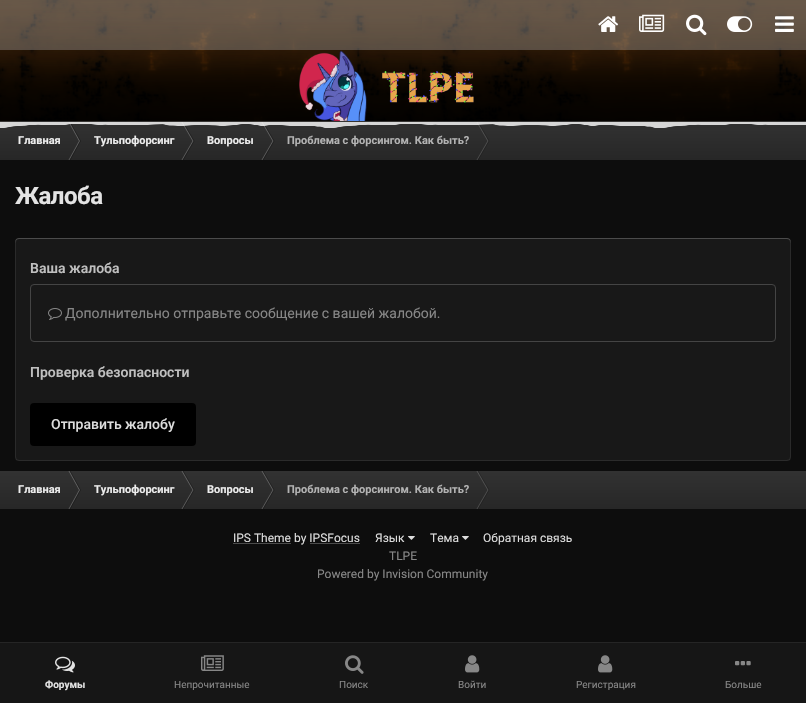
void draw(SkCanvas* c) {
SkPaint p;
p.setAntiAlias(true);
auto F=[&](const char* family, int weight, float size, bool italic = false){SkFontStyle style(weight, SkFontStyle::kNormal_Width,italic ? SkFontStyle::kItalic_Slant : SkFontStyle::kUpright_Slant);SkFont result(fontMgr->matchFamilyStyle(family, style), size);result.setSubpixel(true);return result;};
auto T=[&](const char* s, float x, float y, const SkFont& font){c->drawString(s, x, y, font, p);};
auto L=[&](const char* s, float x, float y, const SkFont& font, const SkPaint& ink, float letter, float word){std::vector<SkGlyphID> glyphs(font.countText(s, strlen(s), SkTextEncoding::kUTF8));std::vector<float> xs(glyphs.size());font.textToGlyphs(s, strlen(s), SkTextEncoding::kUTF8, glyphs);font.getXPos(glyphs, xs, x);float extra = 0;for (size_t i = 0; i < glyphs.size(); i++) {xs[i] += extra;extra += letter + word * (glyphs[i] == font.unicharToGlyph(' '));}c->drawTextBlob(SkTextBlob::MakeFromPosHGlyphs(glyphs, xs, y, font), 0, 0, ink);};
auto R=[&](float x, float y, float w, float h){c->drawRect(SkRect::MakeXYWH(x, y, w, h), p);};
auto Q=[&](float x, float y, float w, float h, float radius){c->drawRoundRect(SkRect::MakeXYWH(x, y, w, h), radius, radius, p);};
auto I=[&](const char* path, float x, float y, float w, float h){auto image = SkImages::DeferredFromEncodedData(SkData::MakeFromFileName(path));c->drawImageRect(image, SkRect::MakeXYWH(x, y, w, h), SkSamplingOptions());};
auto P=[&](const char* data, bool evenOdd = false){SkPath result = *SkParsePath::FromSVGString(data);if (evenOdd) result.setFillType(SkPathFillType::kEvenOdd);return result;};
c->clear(0xff0d0d0d);
I("1.png",0,0,806,122);
p.setColor(0x4dc8c8c8);
R(0,0,806,50);
I("2.png",598,16,21,16);
I("3.png",639,14,26,18);
I("4.png",686,14,21,22);
I("5.png",727,16,26,16);
I("6.png",775,16,19,16);
p.setColor(0x33ffffff);
R(0,121,806,1);
I("7.png",299,50,175,71);
{
const SkColor colors[] = {0xff323232,0xff272727};
const float stops[] = {0,1};
const SkPoint ends[] = {{403,122}, {403,160}};
p.setShader(SkGradientShader::MakeLinear(ends, colors, stops, 2, SkTileMode::kClamp));
p.setAlpha(255);
}
R(0,122,806,38);
p.setShader(nullptr);
p.setColor(0x40ffffff);
c->drawPath(P("M68.5 122h1l10.5 19h-1z"),p);
p.setColor(0x4d000000);
c->drawPath(P("M69.5 122h1l10.5 19h-1z"),p);
p.setColor(0x40ffffff);
c->drawPath(P("M181.5 122h1l11 19h-1z"),p);
p.setColor(0x4d000000);
c->drawPath(P("M182.5 122h1l11 19h-1z"),p);
p.setColor(0x40ffffff);
c->drawPath(P("M261.5 122h1l11 19h-1z"),p);
p.setColor(0x4d000000);
c->drawPath(P("M262.5 122h1l11 19h-1z"),p);
p.setColor(0x2bffffff);
c->drawPath(P("M476.5 122h1l11 19h-1z"),p);
p.setColor(0x36000000);
c->drawPath(P("M477.5 122h1l11 19h-1z"),p);
I("8.png",0,122,806,6);
auto f1 = F("Roboto",700,11);
p.setColor(0xffededed);
T("Главная",18,144,f1);
p.setColor(0x40ffffff);
c->drawPath(P("M68.5 160h1l10.5-19h-1z"),p);
p.setColor(0x4d000000);
c->drawPath(P("M69.5 160h1l10.5-19h-1z"),p);
p.setColor(0xffededed);
T("Тульпофорсинг",94,144,f1);
p.setColor(0x40ffffff);
c->drawPath(P("M181.5 160h1l11-19h-1z"),p);
p.setColor(0x4d000000);
c->drawPath(P("M182.5 160h1l11-19h-1z"),p);
p.setColor(0xffededed);
T("Вопросы",207,144,f1);
p.setColor(0x40ffffff);
c->drawPath(P("M261.5 160h1l11-19h-1z"),p);
p.setColor(0x4d000000);
c->drawPath(P("M262.5 160h1l11-19h-1z"),p);
p.setColor(0xffb3b3b3);
T("Проблема с форсингом. Как быть?",287,144,f1);
p.setColor(0x2bffffff);
c->drawPath(P("M476.5 160h1l11-19h-1z"),p);
p.setColor(0x36000000);
c->drawPath(P("M477.5 160h1l11-19h-1z"),p);
auto f2 = F("Roboto",700,24);
p.setColor(0xffe3e3e3);
L("Жалоба",15,204,f2,p,-.5,0);
p.setColor(0xff181818);
Q(15,238,776,223,4);
p.setColor(0x26ffffff);
c->drawPath(P("M19 239h768c2 0 4 2 4 4v-1c0-2-2-4-4-4h-768c-2 0-4 2-4 4v1c0-2 2-4 4-4z"),p);
p.setStroke(true);
p.setStrokeWidth(1);
p.setColor(0x14ffffff);
c->drawRoundRect(SkRect::MakeXYWH(15.5,238.5,775,222),3.5,3.5,p);
auto f3 = F("Roboto",600,14);
p.setStroke(false);
p.setColor(0xffbfbfbf);
T("Ваша жалоба",30,273,f3);
p.setStroke(true);
p.setColor(0xff444444);
c->drawRoundRect(SkRect::MakeXYWH(30.5,284.5,745,57),3.5,3.5,p);
I("9.png",48,308,14,12);
auto f4 = F("Roboto",400,14);
p.setStroke(false);
p.setColor(0xff878787);
T("Дополнительно отправьте сообщение с вашей жалобой.",65,318,f4);
p.setColor(0xffbfbfbf);
T("Проверка безопасности",30,377,f3);
p.setColor(0xff000000);
Q(30,403,166,43,4);
auto f5 = F("Roboto",500,14);
p.setColor(0xffdddddd);
T("Отправить жалобу",51,429,f5);
{
const SkColor colors[] = {0xff323232,0xff272727};
const float stops[] = {0,1};
const SkPoint ends[] = {{403,471}, {403,509}};
p.setShader(SkGradientShader::MakeLinear(ends, colors, stops, 2, SkTileMode::kClamp));
p.setAlpha(255);
}
R(0,471,806,38);
p.setShader(nullptr);
p.setColor(0xffededed);
T("Главная",18,493,f1);
p.setColor(0x40ffffff);
c->drawPath(P("M68.5 471h1l10.5 19h-1z"),p);
p.setColor(0x4d000000);
c->drawPath(P("M69.5 471h1l10.5 19h-1z"),p);
p.setColor(0x40ffffff);
c->drawPath(P("M68.5 509h1l10.5-19h-1z"),p);
p.setColor(0x4d000000);
c->drawPath(P("M69.5 509h1l10.5-19h-1z"),p);
p.setColor(0xffededed);
T("Тульпофорсинг",94,493,f1);
p.setColor(0x40ffffff);
c->drawPath(P("M181.5 471h1l11 19h-1z"),p);
p.setColor(0x4d000000);
c->drawPath(P("M182.5 471h1l11 19h-1z"),p);
p.setColor(0x40ffffff);
c->drawPath(P("M181.5 509h1l11-19h-1z"),p);
p.setColor(0x4d000000);
c->drawPath(P("M182.5 509h1l11-19h-1z"),p);
p.setColor(0xffededed);
T("Вопросы",207,493,f1);
p.setColor(0x40ffffff);
c->drawPath(P("M261.5 471h1l11 19h-1z"),p);
p.setColor(0x4d000000);
c->drawPath(P("M262.5 471h1l11 19h-1z"),p);
p.setColor(0x40ffffff);
c->drawPath(P("M261.5 509h1l11-19h-1z"),p);
p.setColor(0x4d000000);
c->drawPath(P("M262.5 509h1l11-19h-1z"),p);
p.setColor(0xffb3b3b3);
T("Проблема с форсингом. Как быть?",287,493,f1);
p.setColor(0x2bffffff);
c->drawPath(P("M476.5 471h1l11 19h-1z"),p);
p.setColor(0x36000000);
c->drawPath(P("M477.5 471h1l11 19h-1z"),p);
p.setColor(0x2bffffff);
c->drawPath(P("M476.5 509h1l11-19h-1z"),p);
p.setColor(0x36000000);
c->drawPath(P("M477.5 509h1l11-19h-1z"),p);
p.setColor(0xff4b4b4b);
R(233,543,58,1);
auto f6 = F("Roboto",400,12);
p.setColor(0xffdddddd);
T("IPS Theme by IPSFocus",233,542,f6);
p.setColor(0xff4b4b4b);
R(310,543,50,1);
p.setColor(0xffdddddd);
T("Язык",375,542,f6);
I("10.png",408,536,7,4);
T("Тема",430,542,f6);
I("10.png",462,536,7,4);
T("Обратная связь",483,542,f6);
p.setColor(0xff878787);
T("TLPE",389,560,f6);
T("Powered by Invision Community",317,578,f6);
p.setColor(0xff252525);
R(0,642,806,1);
p.setColor(0xff161616);
R(0,643,806,60);
I("11.png",55,656,20,17);
auto f7 = F("Roboto",700,10);
p.setColor(0xffe3e3e3);
T("Форумы",45,688,f7);
I("12.png",201,655,23,16);
auto f8 = F("Roboto",400,10);
p.setColor(0xff878787);
T("Непрочитанные",174,688,f8);
I("13.png",345,655,19,19);
T("Поиск",339,688,f8);
I("14.png",465,655,15,18);
T("Войти",458,688,f8);
I("14.png",598,655,15,18);
T("Регистрация",576,688,f8);
I("15.png",735,661,16,5);
T("Больше",725,688,f8);
}
